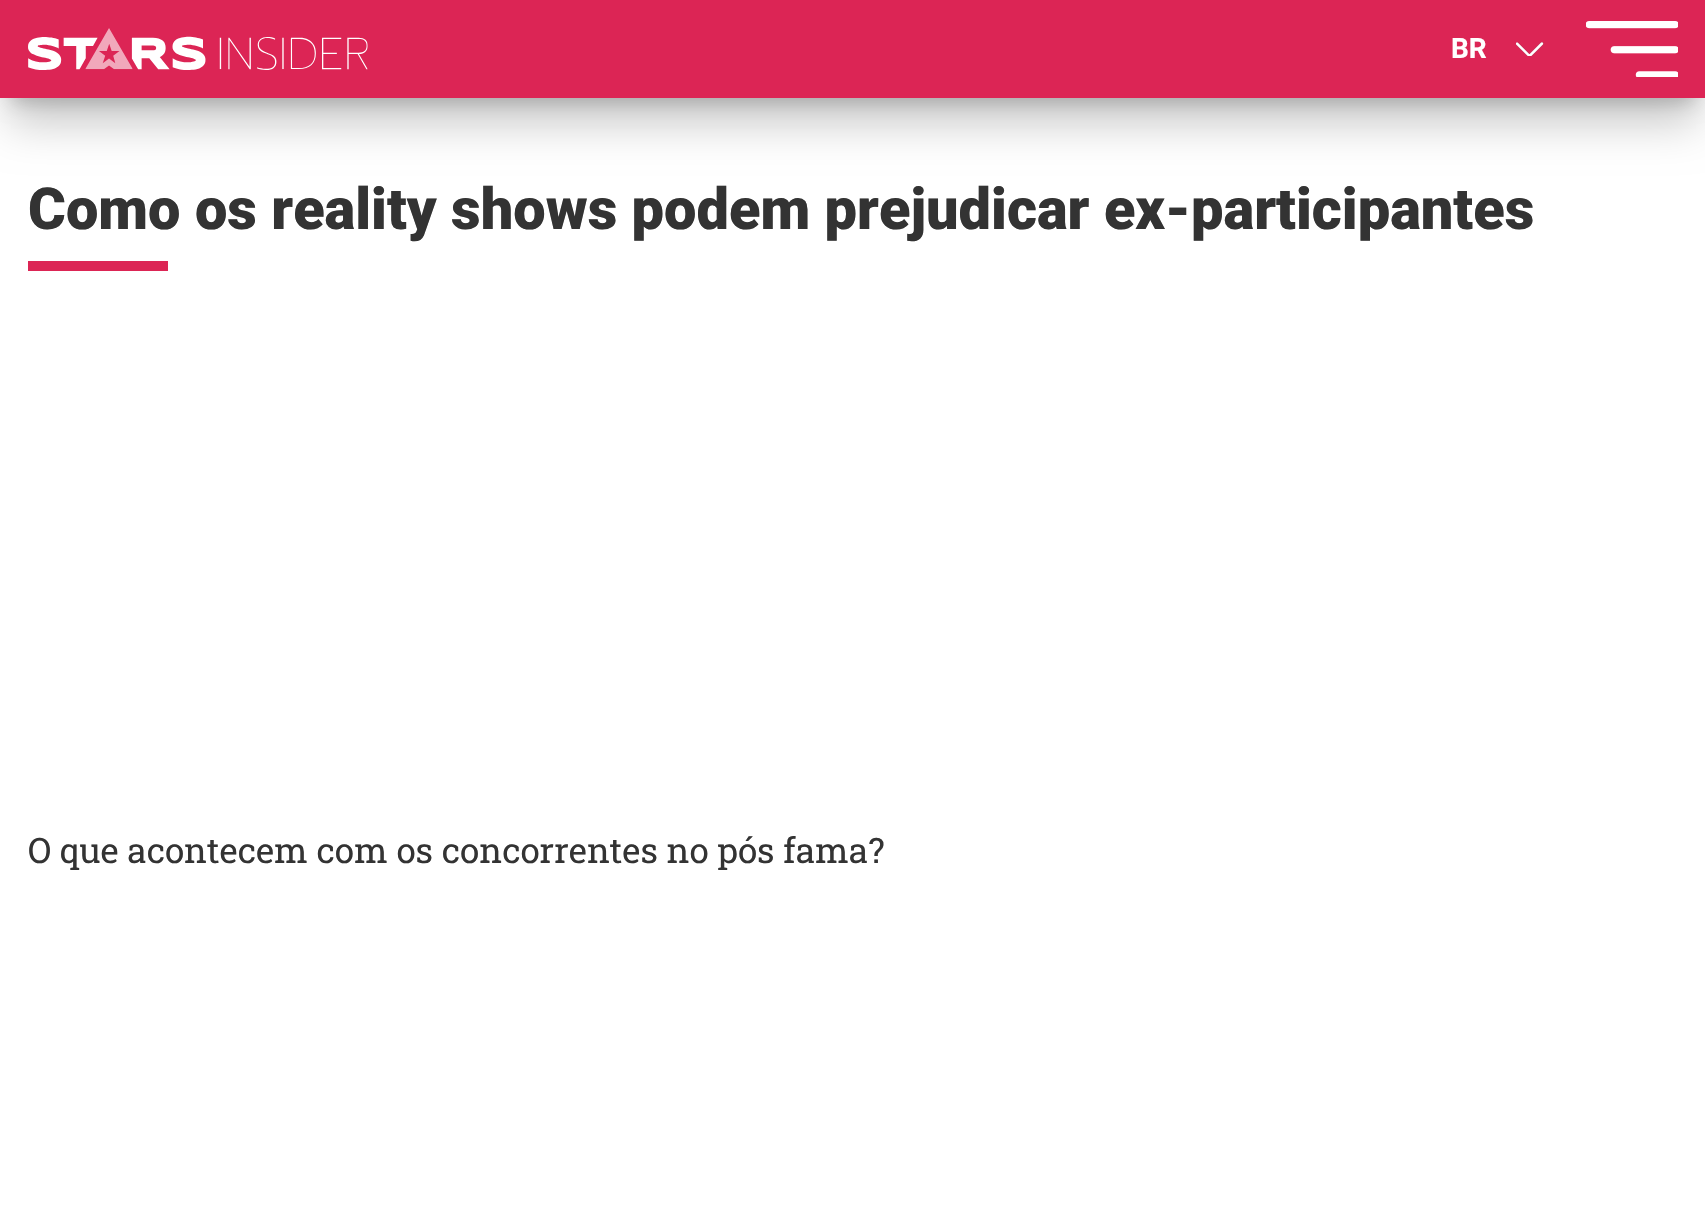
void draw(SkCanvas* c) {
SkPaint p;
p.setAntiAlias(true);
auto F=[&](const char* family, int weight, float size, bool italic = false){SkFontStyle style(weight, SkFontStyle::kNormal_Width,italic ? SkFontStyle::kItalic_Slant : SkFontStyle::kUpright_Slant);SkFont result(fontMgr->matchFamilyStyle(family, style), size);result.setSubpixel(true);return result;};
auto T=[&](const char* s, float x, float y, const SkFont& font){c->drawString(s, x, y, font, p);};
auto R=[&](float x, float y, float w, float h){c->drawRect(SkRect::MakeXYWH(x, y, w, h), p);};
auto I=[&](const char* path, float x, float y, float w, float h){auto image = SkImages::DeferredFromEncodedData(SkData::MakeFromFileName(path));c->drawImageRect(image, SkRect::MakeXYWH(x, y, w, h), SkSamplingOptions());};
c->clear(0xffffffff);
p.setColor(0x33000000);
p.setMaskFilter(SkMaskFilter::MakeBlur(kNormal_SkBlurStyle, 9));
c->drawRect(SkRect::MakeXYWH(11,25,1685,77),p);
p.setMaskFilter(nullptr);
p.setMaskFilter(SkMaskFilter::MakeBlur(kNormal_SkBlurStyle, 22));
c->drawRect(SkRect::MakeXYWH(9,44,1689,80),p);
p.setMaskFilter(nullptr);
p.setColor(0xffdc2555);
R(0,0,1705,98);
I("1.png",28,28,340,42);
auto f1 = F("Roboto",700,28);
p.setColor(0xffffffff);
T("BR",1451,58,f1);
I("2.png",1516,42,28,14);
I("3.png",1586,21,92,56);
auto f2 = F("Roboto",900,57.75);
p.setColor(0xff333333);
T("Como os reality shows podem prejudicar ex-participantes",28,229,f2);
p.setColor(0xffdc2555);
R(28,261,140,10);
auto f3 = F("Roboto Slab",400,35);
p.setColor(0xff333333);
T("O que acontecem com os concorrentes no pós fama?",28,863,f3);
}
